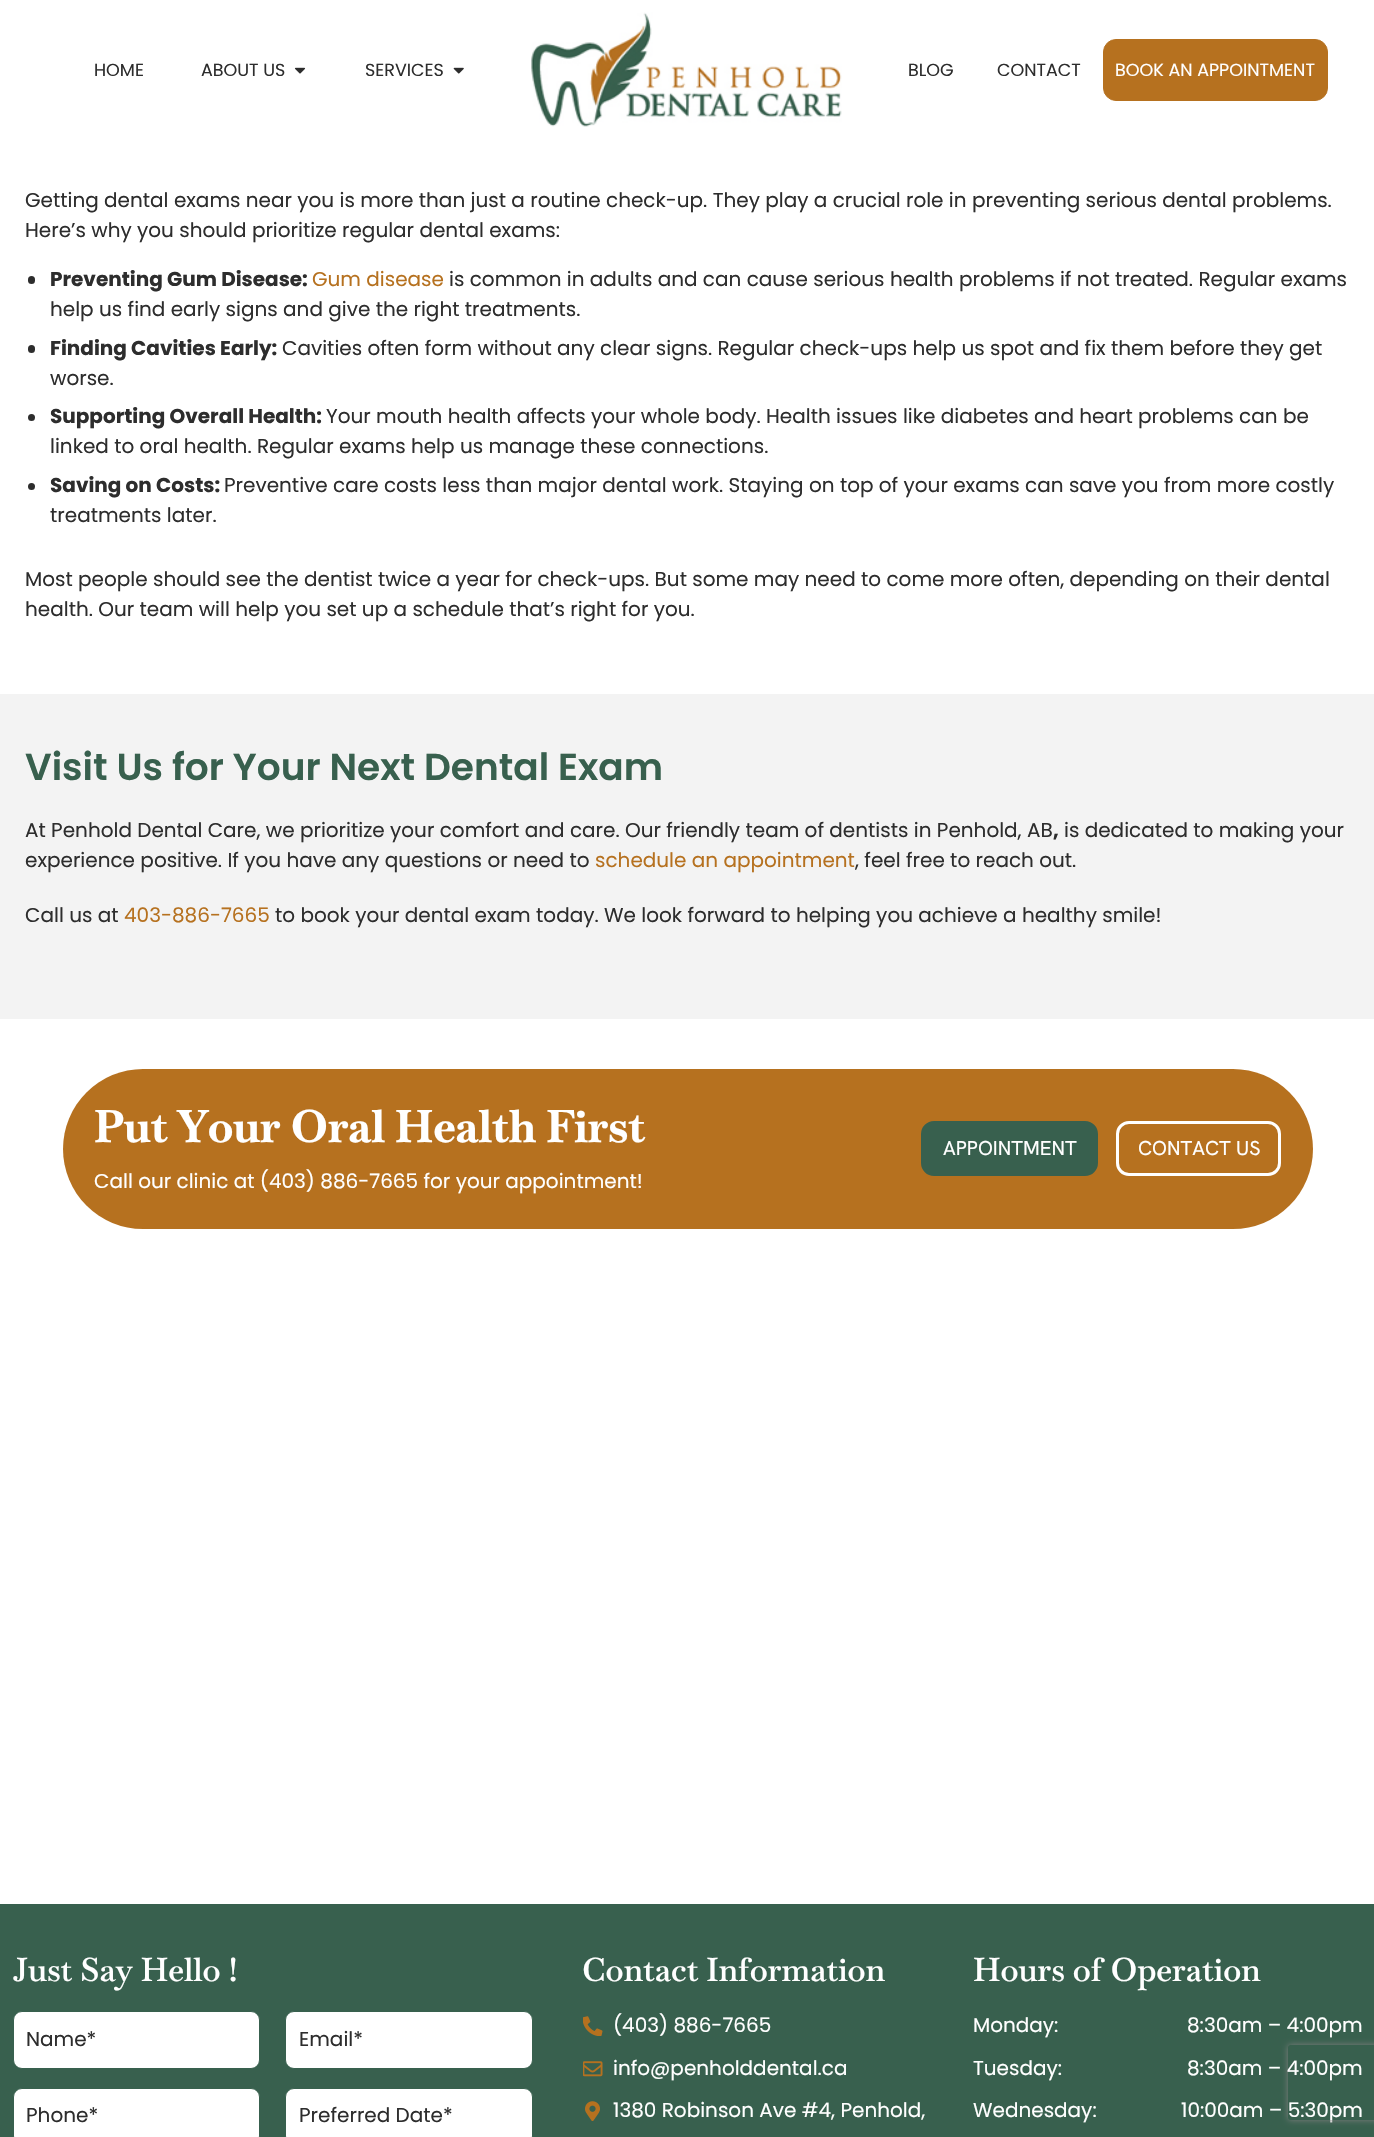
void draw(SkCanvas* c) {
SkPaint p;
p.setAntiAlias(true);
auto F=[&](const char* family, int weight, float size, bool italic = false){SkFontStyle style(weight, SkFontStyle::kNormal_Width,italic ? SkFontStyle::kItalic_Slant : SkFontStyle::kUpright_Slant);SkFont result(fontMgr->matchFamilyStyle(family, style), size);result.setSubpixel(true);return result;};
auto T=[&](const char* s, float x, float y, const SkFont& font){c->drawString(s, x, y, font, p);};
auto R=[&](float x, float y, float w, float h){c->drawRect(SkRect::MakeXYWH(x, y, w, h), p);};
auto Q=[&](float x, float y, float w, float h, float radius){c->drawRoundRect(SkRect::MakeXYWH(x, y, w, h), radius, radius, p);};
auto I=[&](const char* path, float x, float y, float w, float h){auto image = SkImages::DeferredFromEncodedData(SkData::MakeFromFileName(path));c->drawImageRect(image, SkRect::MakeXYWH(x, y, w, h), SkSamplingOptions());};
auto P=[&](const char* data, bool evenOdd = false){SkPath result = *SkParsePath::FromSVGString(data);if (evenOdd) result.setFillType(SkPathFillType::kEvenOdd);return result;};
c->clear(0xffffffff);
auto f1 = F("Poppins",400,17.5);
p.setColor(0xff2d2d2d);
T("HOME",94,76,f1);
T("ABOUT US",201,76,f1);
I("1.png",294,67,12,7);
T("SERVICES",365,76,f1);
I("2.png",453,67,11,7);
I("3.png",531,12,311,115);
T("BLOG",908,76,f1);
T("CONTACT",997,76,f1);
p.setColor(0xffb6711f);
c->drawRoundRect(SkRect::MakeXYWH(1103.5,39.5,224,61),12.5,12.5,p);
p.setStroke(true);
p.setStrokeWidth(1);
c->drawRoundRect(SkRect::MakeXYWH(1103.5,39.5,224,61),12.5,12.5,p);
p.setStroke(false);
p.setColor(0xffffffff);
T("BOOK AN APPOINTMENT",1115,76,f1);
auto f2 = F("Poppins",400,20);
p.setColor(0xff2d2d2d);
T("Getting dental exams near you is more than just a routine check-up. They play a crucial role in preventing serious dental problems.",25,207,f2);
T("Here’s why you should prioritize regular dental exams:",25,237,f2);
Q(28,276,7,8,3.5);
auto f3 = F("Poppins",700,20);
T("Preventing Gum Disease:",50,286,f3);
p.setColor(0xffb6711f);
T("Gum disease",312,286,f2);
p.setColor(0xff2d2d2d);
T("is common in adults and can cause serious health problems if not treated. Regular exams",449,286,f2);
T("help us find early signs and give the right treatments.",50,316,f2);
Q(28,345,7,8,3.5);
T("Finding Cavities Early:",50,355,f3);
T("Cavities often form without any clear signs. Regular check-ups help us spot and fix them before they get",282,355,f2);
T("worse.",50,385,f2);
c->drawCircle(31.5,417.5,3.5,p);
T("Supporting Overall Health:",50,423,f3);
T("Your mouth health affects your whole body. Health issues like diabetes and heart problems can be",326,423,f2);
T("linked to oral health. Regular exams help us manage these connections.",50,453,f2);
c->drawCircle(31.5,486.5,3.5,p);
T("Saving on Costs:",50,492,f3);
T("Preventive care costs less than major dental work. Staying on top of your exams can save you from more costly",224,492,f2);
T("treatments later.",50,522,f2);
T("Most people should see the dentist twice a year for check-ups. But some may need to come more often, depending on their dental",25,586,f2);
T("health. Our team will help you set up a schedule that’s right for you.",25,616,f2);
p.setColor(0xfff3f3f3);
R(0,694,1374,325);
auto f4 = F("Poppins",600,37.5);
p.setColor(0xff38604e);
T("Visit Us for Your Next Dental Exam",25,780,f4);
p.setColor(0xff2d2d2d);
T("At Penhold Dental Care, we prioritize your comfort and care. Our friendly team of dentists in Penhold, AB",25,837,f2);
T(",",1053,837,f3);
T("is dedicated to making your",1064,837,f2);
T("experience positive. If you have any questions or need to",25,867,f2);
p.setColor(0xffb6711f);
T("schedule an appointment",595,867,f2);
p.setColor(0xff2d2d2d);
T(", feel free to reach out.",855,867,f2);
T("Call us at",25,922,f2);
p.setColor(0xffb6711f);
T("403-886-7665",124,922,f2);
p.setColor(0xff2d2d2d);
T("to book your dental exam today. We look forward to helping you achieve a healthy smile!",275,922,f2);
p.setColor(0xffb6711f);
Q(63,1069,1250,160,80);
auto f5 = F("Baskervville",700,45);
p.setColor(0xffffffff);
T("Put Your Oral Health First",94,1142,f5);
T("Call our clinic at (403) 886-7665 for your appointment!",94,1188,f2);
p.setColor(0xff38604e);
c->drawRoundRect(SkRect::MakeXYWH(922.5,1122.5,174,52),11.5,11.5,p);
p.setStroke(true);
p.setStrokeWidth(3);
c->drawRoundRect(SkRect::MakeXYWH(922.5,1122.5,174,52),11.5,11.5,p);
auto f6 = F("Hanken Grotesk",400,20);
p.setStroke(false);
p.setColor(0xffffffff);
T("APPOINTMENT",943,1155,f6);
p.setStroke(true);
c->drawRoundRect(SkRect::MakeXYWH(1117.5,1122.5,162,52),11.5,11.5,p);
p.setStroke(false);
T("CONTACT US",1138,1155,f6);
p.setColor(0xff38604e);
R(0,1904,1374,233);
auto f7 = F("Baskervville",600,32.5);
p.setColor(0xffffffff);
T("Just Say Hello !",13,1981,f7);
c->drawRoundRect(SkRect::MakeXYWH(13.5,2011.5,246,57),8.5,8.5,p);
p.setStroke(true);
p.setStrokeWidth(1);
p.setColor(0xff38604e);
c->drawRoundRect(SkRect::MakeXYWH(13.5,2011.5,246,57),8.5,8.5,p);
p.setStroke(false);
p.setColor(0xff2d2d2d);
T("Name*",26,2046,f2);
p.setColor(0xffffffff);
c->drawRoundRect(SkRect::MakeXYWH(285.5,2011.5,247,57),8.5,8.5,p);
p.setStroke(true);
p.setColor(0xff38604e);
c->drawRoundRect(SkRect::MakeXYWH(285.5,2011.5,247,57),8.5,8.5,p);
p.setStroke(false);
p.setColor(0xff2d2d2d);
T("Email*",299,2046,f2);
p.setColor(0xffffffff);
c->drawRoundRect(SkRect::MakeXYWH(13.5,2088.5,246,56),8.5,8.5,p);
p.setStroke(true);
p.setColor(0xff38604e);
c->drawRoundRect(SkRect::MakeXYWH(13.5,2088.5,246,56),8.5,8.5,p);
p.setStroke(false);
p.setColor(0xff2d2d2d);
T("Phone*",26,2122,f2);
p.setColor(0xffffffff);
c->drawRoundRect(SkRect::MakeXYWH(285.5,2088.5,247,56),8.5,8.5,p);
p.setStroke(true);
p.setColor(0xff38604e);
c->drawRoundRect(SkRect::MakeXYWH(285.5,2088.5,247,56),8.5,8.5,p);
p.setStroke(false);
p.setColor(0xff2d2d2d);
T("Preferred Date*",299,2122,f2);
p.setColor(0xffffffff);
T("Contact Information",582,1981,f7);
I("4.png",583,2016,20,20);
T("(403) 886-7665",613,2032,f2);
I("5.png",583,2061,20,16);
T("info@penholddental.ca",613,2075,f2);
I("6.png",585,2101,15,20);
T("1380 Robinson Ave #4, Penhold,",613,2117,f2);
T("Hours of Operation",973,1981,f7);
T("Monday:",973,2032,f2);
T("8:30am – 4:00pm",1187,2032,f2);
T("Tuesday:",973,2075,f2);
T("8:30am – 4:00pm",1187,2075,f2);
T("Wednesday:",973,2117,f2);
T("10:00am – 5:30pm",1181,2117,f2);
c->save();
c->clipPath(P("M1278 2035h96v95h-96zm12.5 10h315c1.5 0 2.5 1 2.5 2.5v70c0 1.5-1 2.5-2.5 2.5h-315c-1.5 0-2.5-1-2.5-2.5v-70c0-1.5 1-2.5 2.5-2.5z",true),true);
p.setColor(0xff808080);
p.setMaskFilter(SkMaskFilter::MakeBlur(kNormal_SkBlurStyle, 3));
c->drawRoundRect(SkRect::MakeXYWH(1288,2045,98,75),2.5,2.5,p);
p.setMaskFilter(nullptr);
c->restore();
}
